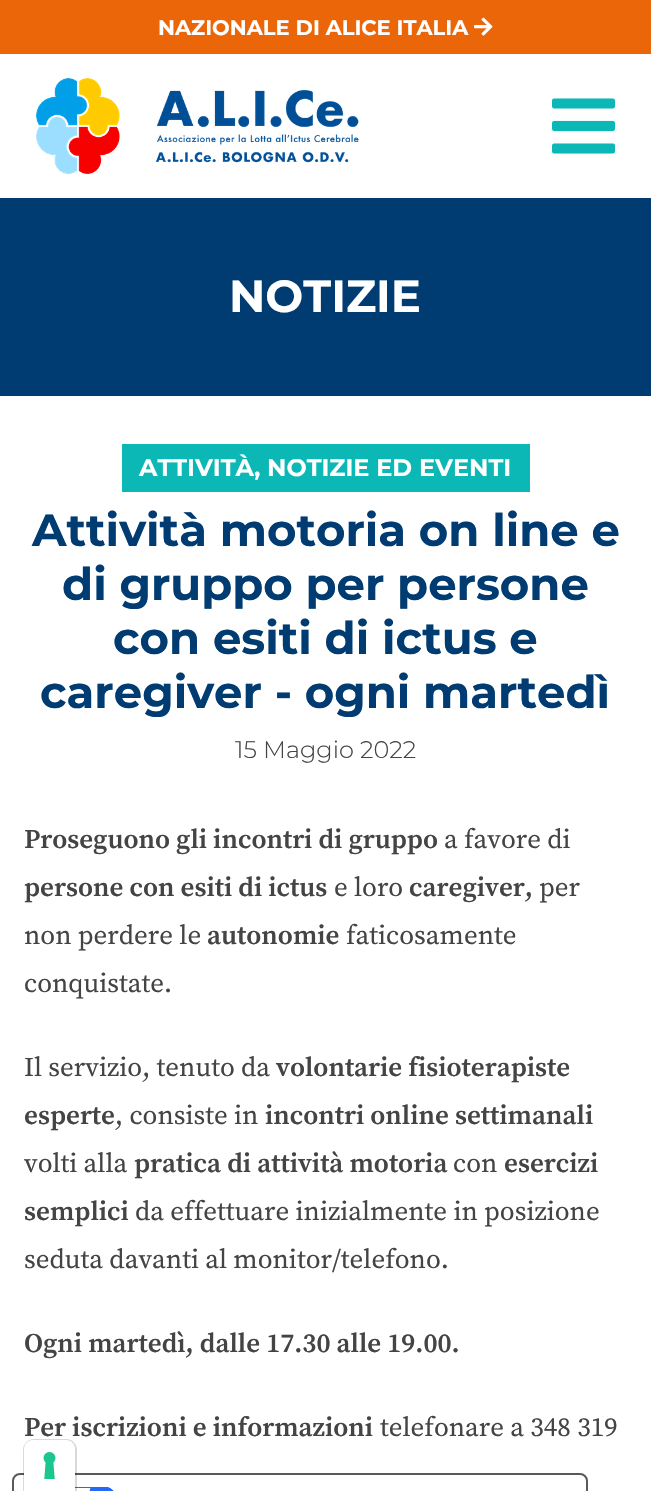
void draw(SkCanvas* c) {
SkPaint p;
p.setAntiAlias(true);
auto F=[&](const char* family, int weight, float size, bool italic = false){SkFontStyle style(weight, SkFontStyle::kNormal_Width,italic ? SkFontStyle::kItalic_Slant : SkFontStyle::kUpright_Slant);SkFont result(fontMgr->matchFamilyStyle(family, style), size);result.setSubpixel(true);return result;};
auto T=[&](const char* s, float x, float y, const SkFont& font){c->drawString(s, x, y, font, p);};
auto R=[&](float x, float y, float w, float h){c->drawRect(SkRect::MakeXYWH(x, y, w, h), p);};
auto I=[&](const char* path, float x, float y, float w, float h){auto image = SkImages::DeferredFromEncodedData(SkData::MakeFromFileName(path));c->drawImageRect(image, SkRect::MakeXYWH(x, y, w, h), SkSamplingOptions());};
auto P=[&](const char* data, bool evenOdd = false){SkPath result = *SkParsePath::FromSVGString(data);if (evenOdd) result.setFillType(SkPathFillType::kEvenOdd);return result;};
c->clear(0xffffffff);
p.setColor(0xffeb6609);
R(0,0,651,54);
auto f1 = F("Montserrat",700,21);
p.setColor(0xffffffff);
T("NAZIONALE DI ALICE ITALIA",158,35,f1);
I("1.png",474,17,19,19);
I("2.png",36,78,323,96);
I("3.png",552,98,63,56);
p.setColor(0xff003c71);
R(0,198,651,198);
auto f2 = F("Montserrat",700,45);
p.setColor(0xffffffff);
T("NOTIZIE",229,312,f2);
p.setColor(0xff0cb8b6);
R(122,444,408,48);
auto f3 = F("Montserrat",700,24);
p.setColor(0xffffffff);
T("ATTIVITÀ, NOTIZIE ED EVENTI",139,476,f3);
p.setColor(0xff003c71);
T("Attività motoria on line e",32,546,f2);
T("di gruppo per persone",62,600,f2);
T("con esiti di ictus e",113,654,f2);
T("caregiver - ogni martedì",40,708,f2);
auto f4 = F("Montserrat",300,24);
p.setColor(0xff444444);
T("15 Maggio 2022",235,758,f4);
auto f5 = F("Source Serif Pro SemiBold",600,27);
T("Proseguono gli incontri di gruppo",24,848,f5);
auto f6 = F("Source Serif Pro",400,27);
T("a favore di",444,848,f6);
T("persone con esiti di ictus",24,896,f5);
T("e loro",334,896,f6);
T("caregiver,",409,896,f5);
T("per",539,896,f6);
T("non perdere le",24,944,f6);
T("autonomie",207,944,f5);
T("faticosamente",346,944,f6);
T("conquistate.",24,992,f6);
T("Il servizio, tenuto da",24,1076,f6);
T("volontarie fisioterapiste",276,1076,f5);
T("esperte",24,1124,f5);
T(", consiste in",115,1124,f6);
T("incontri online settimanali",265,1124,f5);
T("volti alla",24,1172,f6);
T("pratica di attività motoria",134,1172,f5);
T("con",453,1172,f6);
T("esercizi",504,1172,f5);
T("semplici",24,1220,f5);
T("da effettuare inizialmente in posizione",135,1220,f6);
T("seduta davanti al monitor/telefono.",24,1268,f6);
T("Ogni martedì, dalle 17.30 alle 19.00.",24,1352,f5);
T("Per iscrizioni e informazioni",24,1436,f5);
T("telefonare a 348 319",380,1436,f6);
p.setStroke(true);
p.setStrokeWidth(2);
p.setColor(0xff595959);
c->drawRoundRect(SkRect::MakeXYWH(13,1474,574,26),7,7,p);
I("5.png",75,1487,39,4);
p.setColor(0x26000000);
c->drawPath(P("M34 1440h32c5.5 0 10 4.5 10 10v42h-52v-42c0-5.5 4.5-10 10-10z"),p);
p.setStroke(false);
p.setColor(0xffffffff);
c->drawPath(P("M33 1440h33c5 0 9 4 9 9v42h-51v-42c0-5 4-9 9-9z"),p);
I("4.png",43,1452,13,27);
}
